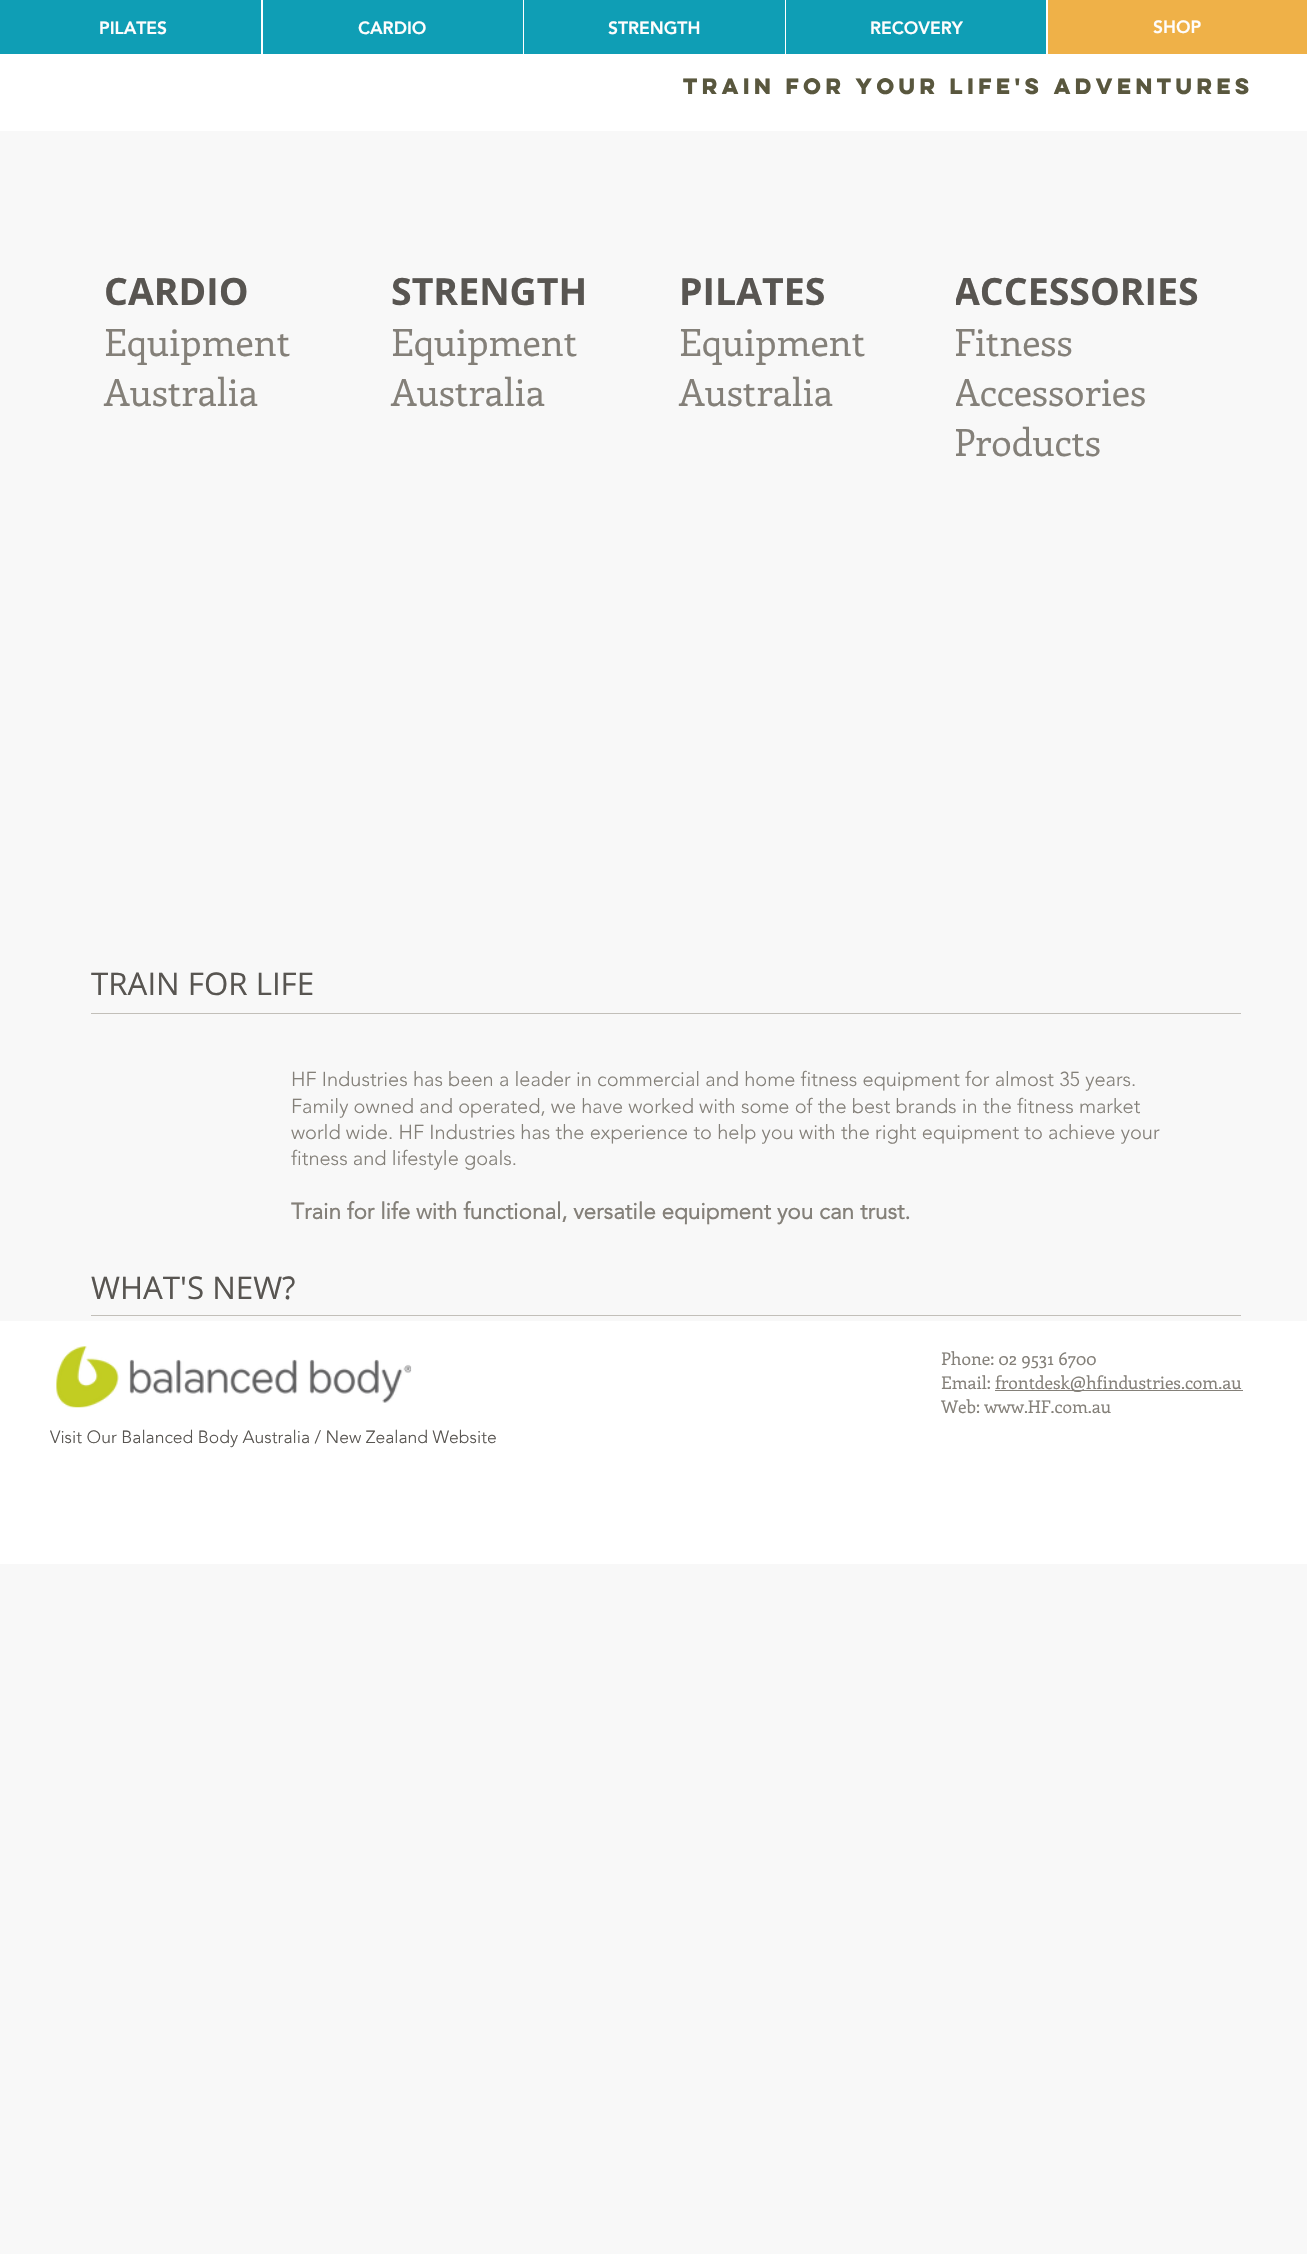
void draw(SkCanvas* c) {
SkPaint p;
p.setAntiAlias(true);
auto F=[&](const char* family, int weight, float size, bool italic = false){SkFontStyle style(weight, SkFontStyle::kNormal_Width,italic ? SkFontStyle::kItalic_Slant : SkFontStyle::kUpright_Slant);SkFont result(fontMgr->matchFamilyStyle(family, style), size);result.setSubpixel(true);return result;};
auto T=[&](const char* s, float x, float y, const SkFont& font){c->drawString(s, x, y, font, p);};
auto R=[&](float x, float y, float w, float h){c->drawRect(SkRect::MakeXYWH(x, y, w, h), p);};
auto I=[&](const char* path, float x, float y, float w, float h){auto image = SkImages::DeferredFromEncodedData(SkData::MakeFromFileName(path));c->drawImageRect(image, SkRect::MakeXYWH(x, y, w, h), SkSamplingOptions());};
c->clear(0xfff8f8f8);
p.setColor(0xffffffff);
R(0,0,1307,131);
p.setColor(0xff0f9eb5);
R(0,0,261,54);
auto f1 = F("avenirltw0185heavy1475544",900,17.5);
p.setColor(0xfffefdfd);
T("PILATES",99,34,f1);
p.setColor(0xff0f9eb5);
R(263,0,260,54);
p.setColor(0xfffefdfd);
T("CARDIO",358,34,f1);
p.setColor(0xff0f9eb5);
R(524,0,261,54);
p.setColor(0xfffefdfd);
T("STRENGTH",608,34,f1);
p.setColor(0xff0f9eb5);
R(786,0,260,54);
p.setColor(0xfffefdfd);
T("RECOVERY",870,34,f1);
p.setColor(0xffefb148);
R(1048,0,259,54);
p.setColor(0xfffefdfd);
T("SHOP",1153,33,f1);
auto f2 = F("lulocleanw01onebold",700,20);
p.setColor(0xff59573e);
T("TRAIN FOR YOUR LIFE'S ADVENTURES",683,94,f2);
auto f3 = F("Open Sans",700,37.5);
p.setColor(0xff585551);
T("CARDIO",104,305,f3);
auto f4 = F("Enriqueta",400,37.5);
p.setColor(0xff848079);
T("Equipment",104,356,f4);
T("Australia",104,406,f4);
p.setColor(0xff585551);
T("STRENGTH",391,305,f3);
p.setColor(0xff848079);
T("Equipment",391,356,f4);
T("Australia",391,406,f4);
p.setColor(0xff585551);
T("PILATES",679,305,f3);
p.setColor(0xff848079);
T("Equipment",679,356,f4);
T("Australia",679,406,f4);
p.setColor(0xff585551);
T("ACCESSORIES",954,305,f3);
p.setColor(0xff848079);
T("Fitness",954,356,f4);
T("Accessories",954,406,f4);
T("Products",954,456,f4);
p.setColor(0xfff8f8f8);
R(953,298,3,158);
auto f5 = F("Open Sans",400,31.25);
p.setColor(0xff585551);
T("TRAIN FOR LIFE",91,995,f5);
p.setColor(0xffc2bfb9);
R(91,1013,1150,1);
auto f6 = F("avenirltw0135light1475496",300,20);
p.setColor(0xff848079);
T("HF Industries has been a leader in commercial and home fitness equipment for almost 35 years.",291,1086,f6);
T("Family owned and operated, we have worked with some of the best brands in the fitness market",291,1113,f6);
T("world wide. HF Industries has the experience to help you with the right equipment to achieve your",291,1139,f6);
T("fitness and lifestyle goals.",291,1165,f6);
auto f7 = F("avenirltw0135light1475496",700,22.5);
T("Train for life with functional, versatile equipment you can trust.",291,1219,f7);
p.setColor(0xff585551);
T("WHAT'S NEW?",91,1299,f5);
p.setColor(0xffc2bfb9);
R(91,1315,1150,1);
p.setColor(0xffffffff);
R(0,1321,1307,243);
I("1.png",56,1346,356,62);
auto f8 = F("Enriqueta",400,17.5);
p.setColor(0xff848079);
T("Phone: 02 9531 6700",941,1365,f8);
T("Email:",941,1389,f8);
R(995,1390,248,1);
T("frontdesk@hfindustries.com.au",995,1389,f8);
T("Web: www.HF.com.au",941,1413,f8);
auto f9 = F("avenirltw0135light1475496",300,17.5);
p.setColor(0xff585551);
T("Visit Our Balanced Body Australia / New Zealand Website",50,1443,f9);
}
